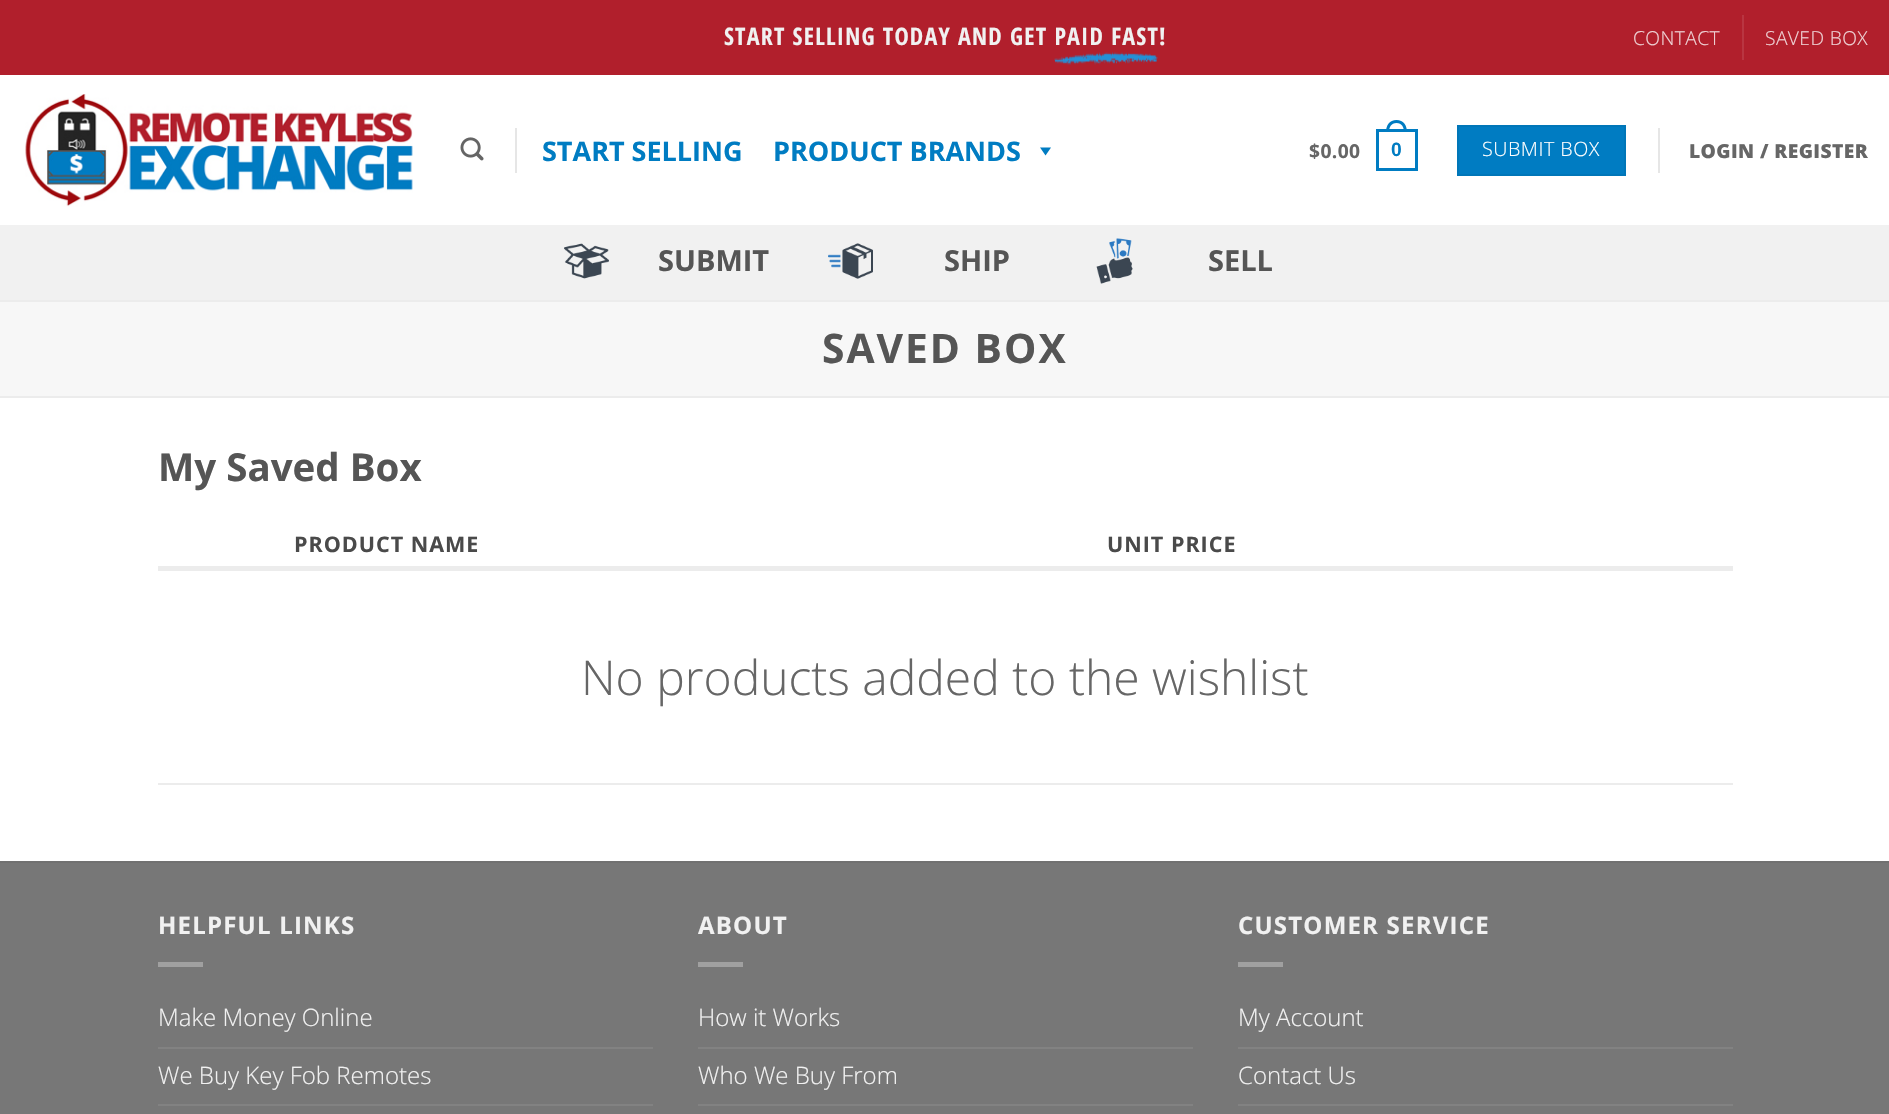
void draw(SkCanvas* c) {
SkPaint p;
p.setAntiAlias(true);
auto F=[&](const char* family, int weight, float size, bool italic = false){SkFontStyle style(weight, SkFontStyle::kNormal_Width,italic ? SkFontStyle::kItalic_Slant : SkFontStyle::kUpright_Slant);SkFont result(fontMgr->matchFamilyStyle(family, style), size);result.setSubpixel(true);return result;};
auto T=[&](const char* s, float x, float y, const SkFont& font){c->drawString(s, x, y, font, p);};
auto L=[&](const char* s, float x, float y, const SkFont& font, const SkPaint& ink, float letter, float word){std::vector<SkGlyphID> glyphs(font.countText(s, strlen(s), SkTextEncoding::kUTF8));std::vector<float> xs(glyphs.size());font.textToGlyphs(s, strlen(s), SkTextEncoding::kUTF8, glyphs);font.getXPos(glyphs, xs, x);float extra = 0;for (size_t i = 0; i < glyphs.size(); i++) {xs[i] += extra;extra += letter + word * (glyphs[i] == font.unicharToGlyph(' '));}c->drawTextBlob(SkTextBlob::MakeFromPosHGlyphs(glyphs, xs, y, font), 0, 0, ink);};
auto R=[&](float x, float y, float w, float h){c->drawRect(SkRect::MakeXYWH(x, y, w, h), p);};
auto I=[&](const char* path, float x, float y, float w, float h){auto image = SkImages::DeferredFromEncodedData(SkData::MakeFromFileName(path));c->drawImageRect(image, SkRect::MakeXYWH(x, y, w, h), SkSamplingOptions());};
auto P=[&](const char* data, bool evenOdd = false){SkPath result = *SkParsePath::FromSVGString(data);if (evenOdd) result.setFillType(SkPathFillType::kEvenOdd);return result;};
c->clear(0xffffffff);
p.setColor(0xffb11f2c);
R(0,0,1889,75);
auto f1 = F("Open Sans Condensed",700,24);
p.setColor(0xfff1f1f1);
L("START SELLING TODAY AND GET PAID FAST",724,45,f1,p,1.2,0);
L("!",1159,45,f1,p,1.2,0);
I("1.png",1054,52,104,13);
auto f2 = F("Open Sans",300,19.25);
p.setColor(0xffefd2d5);
L("CONTACT",1633,45,f2,p,.4,0);
p.setColor(0xffb93541);
R(1742,15,2,45);
p.setColor(0xffefd2d5);
L("SAVED BOX",1765,45,f2,p,.4,0);
I("2.png",25,94,388,113);
I("3.png",460,137,24,24);
p.setColor(0xffe6e6e6);
R(515,128,2,45);
auto f3 = F("Open Sans",700,27);
p.setColor(0xff007cc2);
T("START SELLING",542,161,f3);
T("PRODUCT BRANDS",773,161,f3);
c->drawPath(P("M1051 147.5l-5.5 8l-5.5-8z"),p);
auto f4 = F("Open Sans",700,19.25);
p.setColor(0xff666666);
L("$0.00",1309,158,f4,p,.4,0);
p.setStroke(true);
p.setStrokeWidth(3);
p.setColor(0xff007cc2);
c->drawRect(SkRect::MakeXYWH(1377.5,130.5,39,39),p);
p.setStroke(false);
c->drawPath(P("M1396.5 120c7 0 10.5 5.5 10.5 12h-21c0-6.5 3.5-12 10.5-12zm0 3c5.5 0 7.5 4.5 7.5 9h-15c0-4.5 2-9 7.5-9z",true),p);
auto f5 = F("Liberation Sans",700,19.25);
L("0",1391,156,f5,p,.4,0);
c->drawRect(SkRect::MakeXYWH(1458,126,167,49),p);
p.setStroke(true);
p.setStrokeWidth(2);
p.setColor(0xff0076b8);
c->drawRect(SkRect::MakeXYWH(1458,126,167,49),p);
auto f6 = F("Open Sans",300,19.75);
p.setStroke(false);
p.setColor(0xffffffff);
L("SUBMIT BOX",1482,156,f6,p,.5,0);
p.setColor(0xffe6e6e6);
R(1658,128,2,45);
auto f7 = F("Open Sans",800,19.25);
p.setColor(0xff666666);
L("LOGIN / REGISTER",1689,158,f7,p,.4,0);
p.setColor(0xfff1f1f1);
R(0,225,1889,75);
I("4.png",564,243,45,36);
auto f8 = F("Open Sans",700,29);
p.setColor(0xff555555);
T("SUBMIT",658,271,f8);
I("5.png",828,243,45,36);
T("SHIP",944,271,f8);
I("6.png",1096,238,37,46);
T("SELL",1208,271,f8);
p.setColor(0xfff7f7f7);
R(0,302,1889,94);
p.setColor(0xffececec);
R(0,300,1889,2);
R(0,396,1889,2);
auto f9 = F("Open Sans",700,40.75);
p.setColor(0xff555555);
L("SAVED BOX",822,363,f9,p,2,0);
auto f10 = F("Open Sans",700,38.5);
T("My Saved Box",158,481,f10);
auto f11 = F("Open Sans",700,21.5);
p.setColor(0xff4a4a4a);
L("PRODUCT NAME",294,552,f11,p,1,0);
L("UNIT PRICE",1107,552,f11,p,1,0);
p.setColor(0xffececec);
R(158,566,1575,5);
R(158,783,1575,2);
auto f12 = F("Open Sans",300,48);
p.setColor(0xff666666);
T("No products added to the wishlist",581,695,f12);
p.setColor(0xff777777);
R(0,863,1889,251);
p.setColor(0xff717171);
R(0,861,1889,2);
auto f13 = F("Open Sans",700,24);
p.setColor(0xfff1f1f1);
L("HELPFUL LINKS",158,934,f13,p,1.2,0);
p.setColor(0xffa0a0a0);
R(158,962,45,5);
auto f14 = F("Open Sans",300,24);
p.setColor(0xfff1f1f1);
T("Make Money Online",158,1026,f14);
p.setColor(0xff828282);
R(158,1047,495,2);
p.setColor(0xfff1f1f1);
T("We Buy Key Fob Remotes",158,1084,f14);
p.setColor(0xff828282);
R(158,1104,495,2);
p.setColor(0xfff1f1f1);
L("ABOUT",698,934,f13,p,1.2,0);
p.setColor(0xffa0a0a0);
R(698,962,45,5);
p.setColor(0xfff1f1f1);
T("How it Works",698,1026,f14);
p.setColor(0xff828282);
R(698,1047,495,2);
p.setColor(0xfff1f1f1);
T("Who We Buy From",698,1084,f14);
p.setColor(0xff828282);
R(698,1104,495,2);
p.setColor(0xfff1f1f1);
L("CUSTOMER SERVICE",1238,934,f13,p,1.2,0);
p.setColor(0xffa0a0a0);
R(1238,962,45,5);
p.setColor(0xfff1f1f1);
T("My Account",1238,1026,f14);
p.setColor(0xff828282);
R(1238,1047,495,2);
p.setColor(0xfff1f1f1);
T("Contact Us",1238,1084,f14);
p.setColor(0xff828282);
R(1238,1104,495,2);
}
